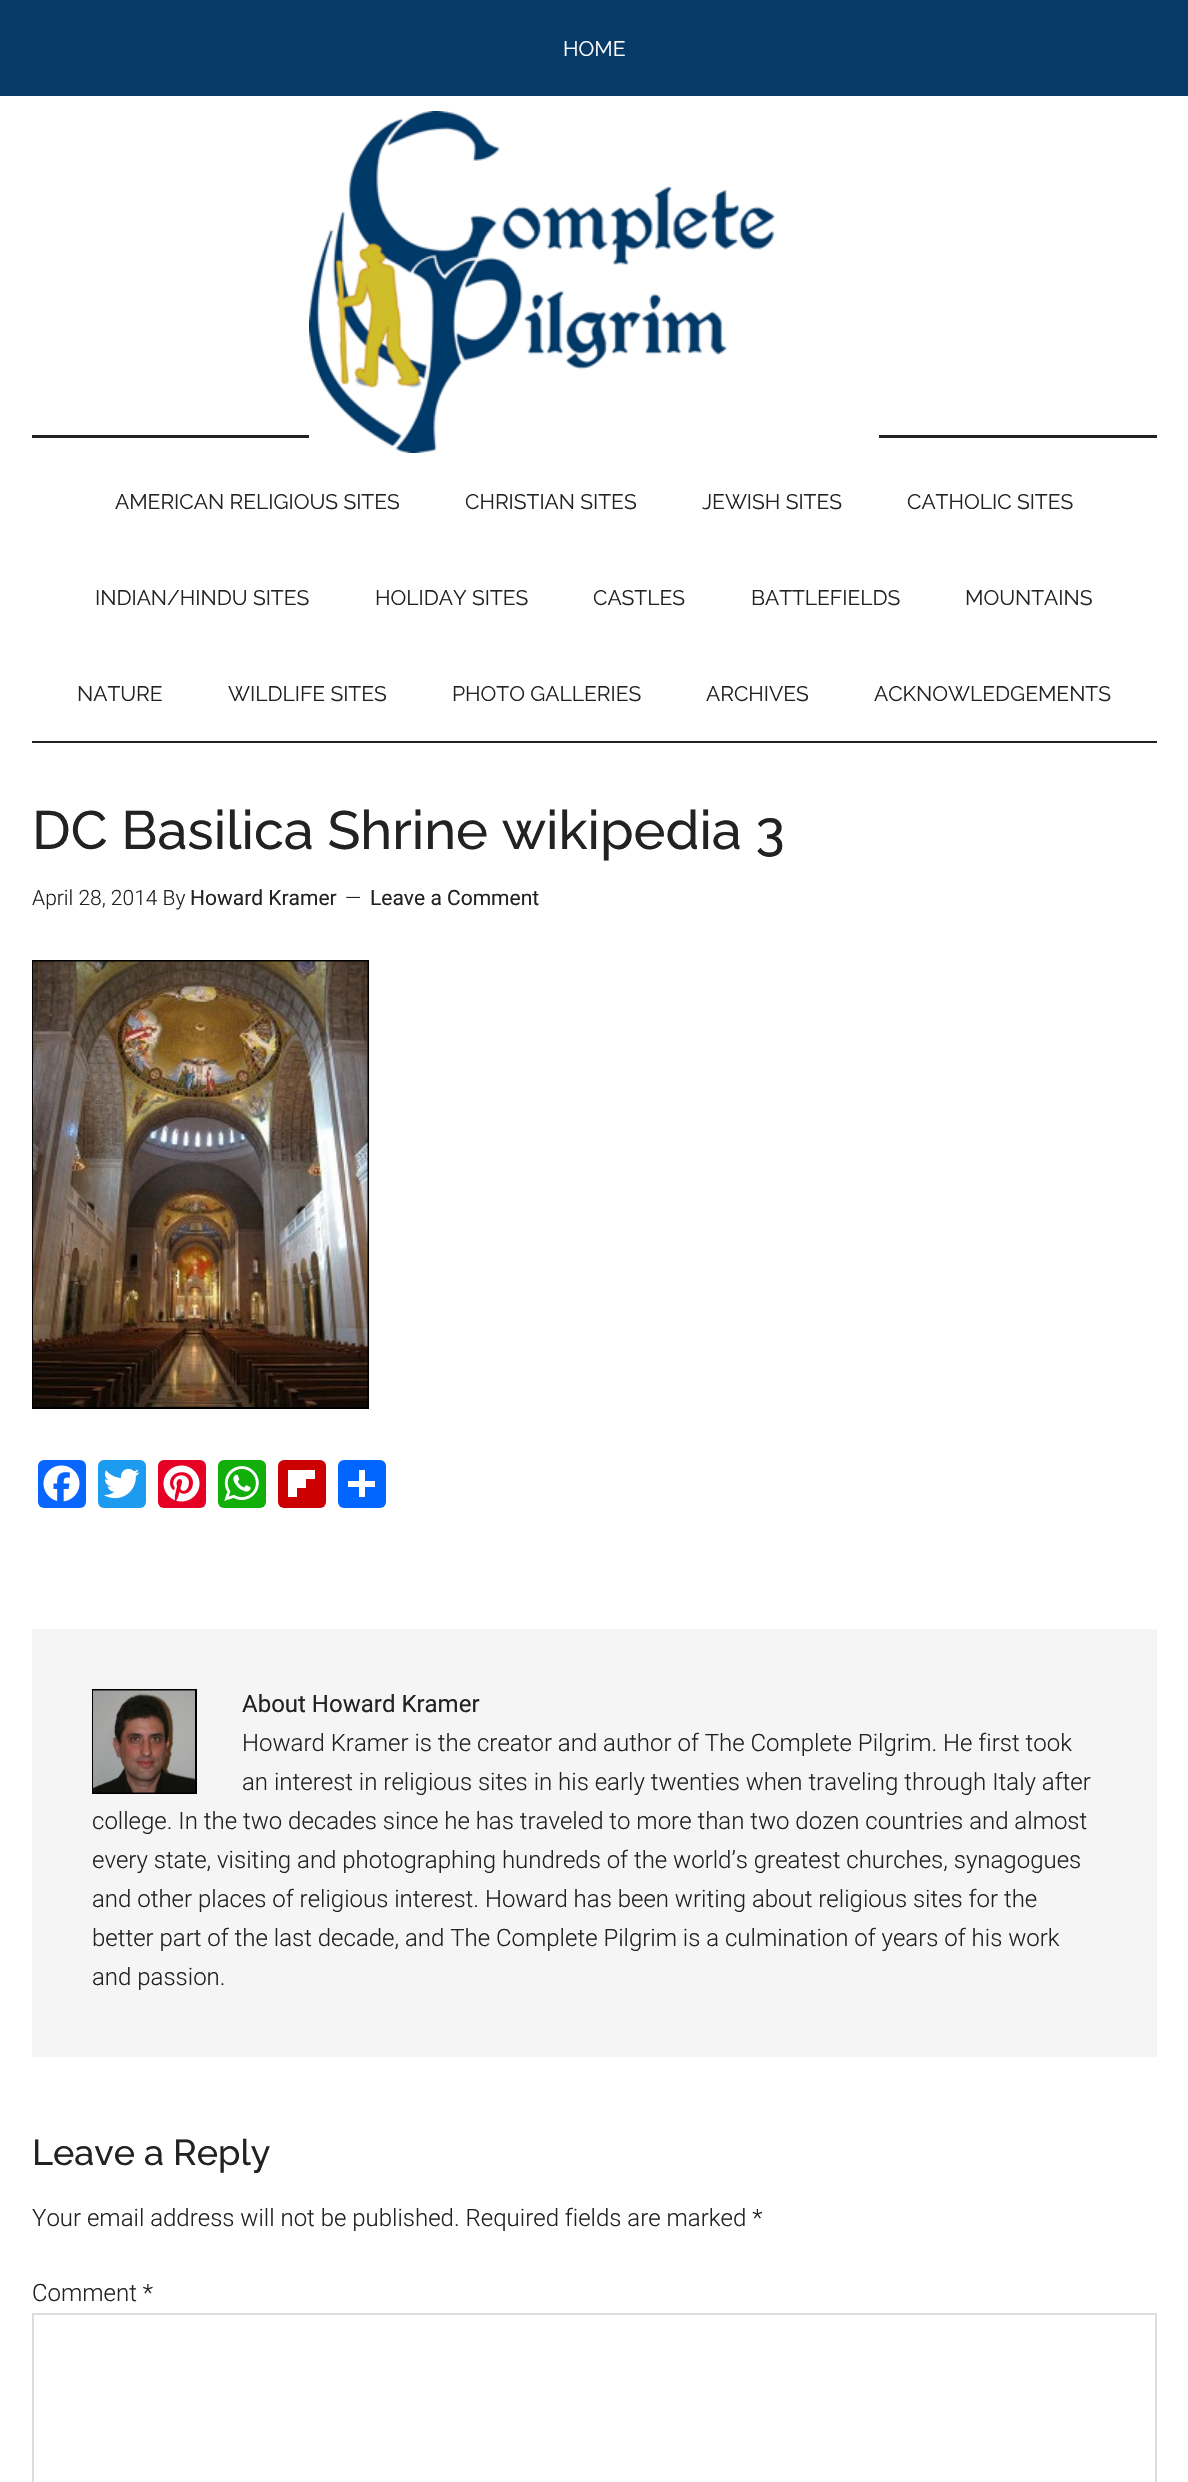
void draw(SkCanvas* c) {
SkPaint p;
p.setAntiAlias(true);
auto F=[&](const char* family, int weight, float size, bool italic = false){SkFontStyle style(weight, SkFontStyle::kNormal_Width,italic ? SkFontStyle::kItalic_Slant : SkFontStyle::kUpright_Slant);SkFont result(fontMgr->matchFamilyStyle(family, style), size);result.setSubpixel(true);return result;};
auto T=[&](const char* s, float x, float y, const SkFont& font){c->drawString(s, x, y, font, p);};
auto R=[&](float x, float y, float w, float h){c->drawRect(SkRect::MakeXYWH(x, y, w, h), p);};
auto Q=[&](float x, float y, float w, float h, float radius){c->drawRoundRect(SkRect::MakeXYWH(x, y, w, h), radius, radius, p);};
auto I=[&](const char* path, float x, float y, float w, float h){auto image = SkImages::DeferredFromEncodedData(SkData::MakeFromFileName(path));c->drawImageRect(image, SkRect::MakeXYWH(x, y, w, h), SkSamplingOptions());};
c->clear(0xffffffff);
p.setColor(0xff083a68);
R(0,0,1188,96);
auto f1 = F("Raleway",400,21);
p.setColor(0xffffffff);
T("HOME",563,56,f1);
p.setColor(0xff222222);
R(32,435,1125,3);
I("1.png",309,111,570,342);
R(32,741,1125,2);
T("AMERICAN RELIGIOUS SITES",115,509,f1);
T("CHRISTIAN SITES",465,509,f1);
T("JEWISH SITES",702,509,f1);
T("CATHOLIC SITES",907,509,f1);
T("INDIAN/HINDU SITES",95,605,f1);
T("HOLIDAY SITES",375,605,f1);
T("CASTLES",593,605,f1);
T("BATTLEFIELDS",751,605,f1);
T("MOUNTAINS",965,605,f1);
T("NATURE",77,701,f1);
T("WILDLIFE SITES",228,701,f1);
T("PHOTO GALLERIES",452,701,f1);
T("ARCHIVES",706,701,f1);
T("ACKNOWLEDGEMENTS",874,701,f1);
auto f2 = F("Raleway",500,54);
T("DC Basilica Shrine wikipedia 3",32,849,f2);
auto f3 = F("Roboto",300,21);
T("April 28, 2014 By",32,905,f3);
auto f4 = F("Roboto",400,21);
T("Howard Kramer",190,905,f4);
T("—",345,905,f3);
T("Leave a Comment",370,905,f4);
p.setStroke(true);
p.setStrokeWidth(2);
p.setColor(0xff000000);
c->drawRect(SkRect::MakeXYWH(33,961,335,447),p);
I("2.png",33,961,335,446);
p.setStroke(false);
p.setColor(0xff0866ff);
Q(38,1460,48,48,6);
I("3.png",43,1465,37,37);
p.setColor(0xff1d9bf0);
Q(98,1460,48,48,6);
I("4.png",103,1468,37,31);
p.setColor(0xffe60023);
Q(158,1460,48,48,6);
I("5.png",163,1465,37,37);
p.setColor(0xff12af0a);
Q(218,1460,48,48,6);
I("6.png",224,1466,35,35);
p.setColor(0xffcc0000);
Q(278,1460,48,48,6);
p.setColor(0xffffffff);
R(297,1479,9,9);
R(297,1470,18,9);
R(288,1470,9,27);
p.setColor(0xff0166ff);
Q(338,1460,48,48,6);
p.setColor(0xffffffff);
R(359,1470,6,27);
R(348,1481,27,6);
p.setColor(0xfff5f5f5);
R(32,1629,1125,428);
p.setStroke(true);
p.setColor(0xff000000);
c->drawRect(SkRect::MakeXYWH(93,1690,103,103),p);
I("7.png",93,1690,102,103);
auto f5 = F("Roboto",400,24);
p.setStroke(false);
p.setColor(0xff222222);
T("About Howard Kramer",242,1712,f5);
auto f6 = F("Roboto",300,24);
T("Howard Kramer is the creator and author of The Complete Pilgrim. He first took",242,1751,f6);
T("an interest in religious sites in his early twenties when traveling through Italy after",242,1790,f6);
T("college. In the two decades since he has traveled to more than two dozen countries and almost",92,1829,f6);
T("every state, visiting and photographing hundreds of the world’s greatest churches, synagogues",92,1868,f6);
T("and other places of religious interest. Howard has been writing about religious sites for the",92,1907,f6);
T("better part of the last decade, and The Complete Pilgrim is a culmination of years of his work",92,1946,f6);
T("and passion.",92,1985,f6);
auto f7 = F("Raleway",500,36);
T("Leave a Reply",32,2165,f7);
T("Your email address will not be published. Required fields are marked *",32,2226,f6);
T("Comment *",32,2301,f6);
p.setStroke(true);
p.setColor(0xffdddddd);
c->drawRect(SkRect::MakeXYWH(33,2314,1123,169),p);
}
